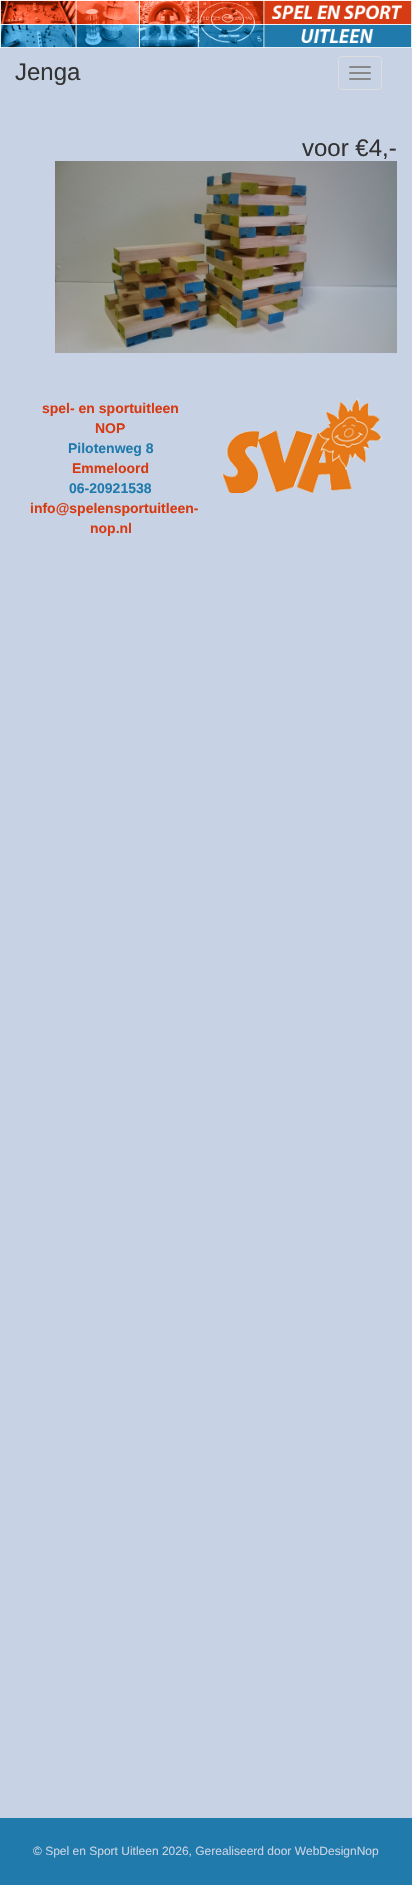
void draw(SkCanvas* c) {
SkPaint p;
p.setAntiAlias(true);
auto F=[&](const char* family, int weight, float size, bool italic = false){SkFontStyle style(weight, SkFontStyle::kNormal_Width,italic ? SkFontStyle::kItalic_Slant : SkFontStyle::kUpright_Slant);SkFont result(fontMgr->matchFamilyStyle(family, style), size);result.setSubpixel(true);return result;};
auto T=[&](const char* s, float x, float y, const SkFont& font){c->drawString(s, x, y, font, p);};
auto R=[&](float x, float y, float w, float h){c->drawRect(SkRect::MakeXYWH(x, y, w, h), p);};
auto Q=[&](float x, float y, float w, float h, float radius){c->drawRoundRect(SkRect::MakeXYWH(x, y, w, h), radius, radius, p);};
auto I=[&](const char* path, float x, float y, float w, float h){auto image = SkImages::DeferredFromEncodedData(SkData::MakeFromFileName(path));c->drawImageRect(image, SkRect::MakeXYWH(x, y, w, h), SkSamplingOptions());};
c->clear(0xffc7d3e4);
I("1.png",0,0,412,48);
auto f1 = F("Liberation Sans",400,24);
p.setColor(0xff333333);
T("Jenga",15,80,f1);
p.setStroke(true);
p.setStrokeWidth(1);
p.setColor(0xffdddddd);
c->drawRoundRect(SkRect::MakeXYWH(338.5,56.5,43,33),3.5,3.5,p);
p.setStroke(false);
p.setColor(0xff888888);
Q(349,66,22,2,1);
Q(349,72,22,2,1);
Q(349,78,22,2,1);
p.setColor(0xff333333);
T("voor €4,-",302,156,f1);
I("2.png",55,161,342,192);
auto f2 = F("Liberation Sans",700,14);
p.setColor(0xffd73b13);
T("spel- en sportuitleen",42,413,f2);
T("NOP",95,433,f2);
p.setColor(0xff207aac);
T("Pilotenweg 8",68,453,f2);
p.setColor(0xffd73b13);
T("Emmeloord",72,473,f2);
p.setColor(0xff207aac);
T("06-20921538",69,493,f2);
p.setColor(0xffd73b13);
T("info@spelensportuitleen-",30,513,f2);
T("nop.nl",90,533,f2);
I("3.png",222,398,160,95);
p.setColor(0xff207aac);
R(0,1818,412,67);
auto f3 = F("Liberation Sans",400,12);
p.setColor(0xffc7d3e4);
T("© Spel en Sport Uitleen 2026, Gerealiseerd door WebDesignNop",33,1855,f3);
}
